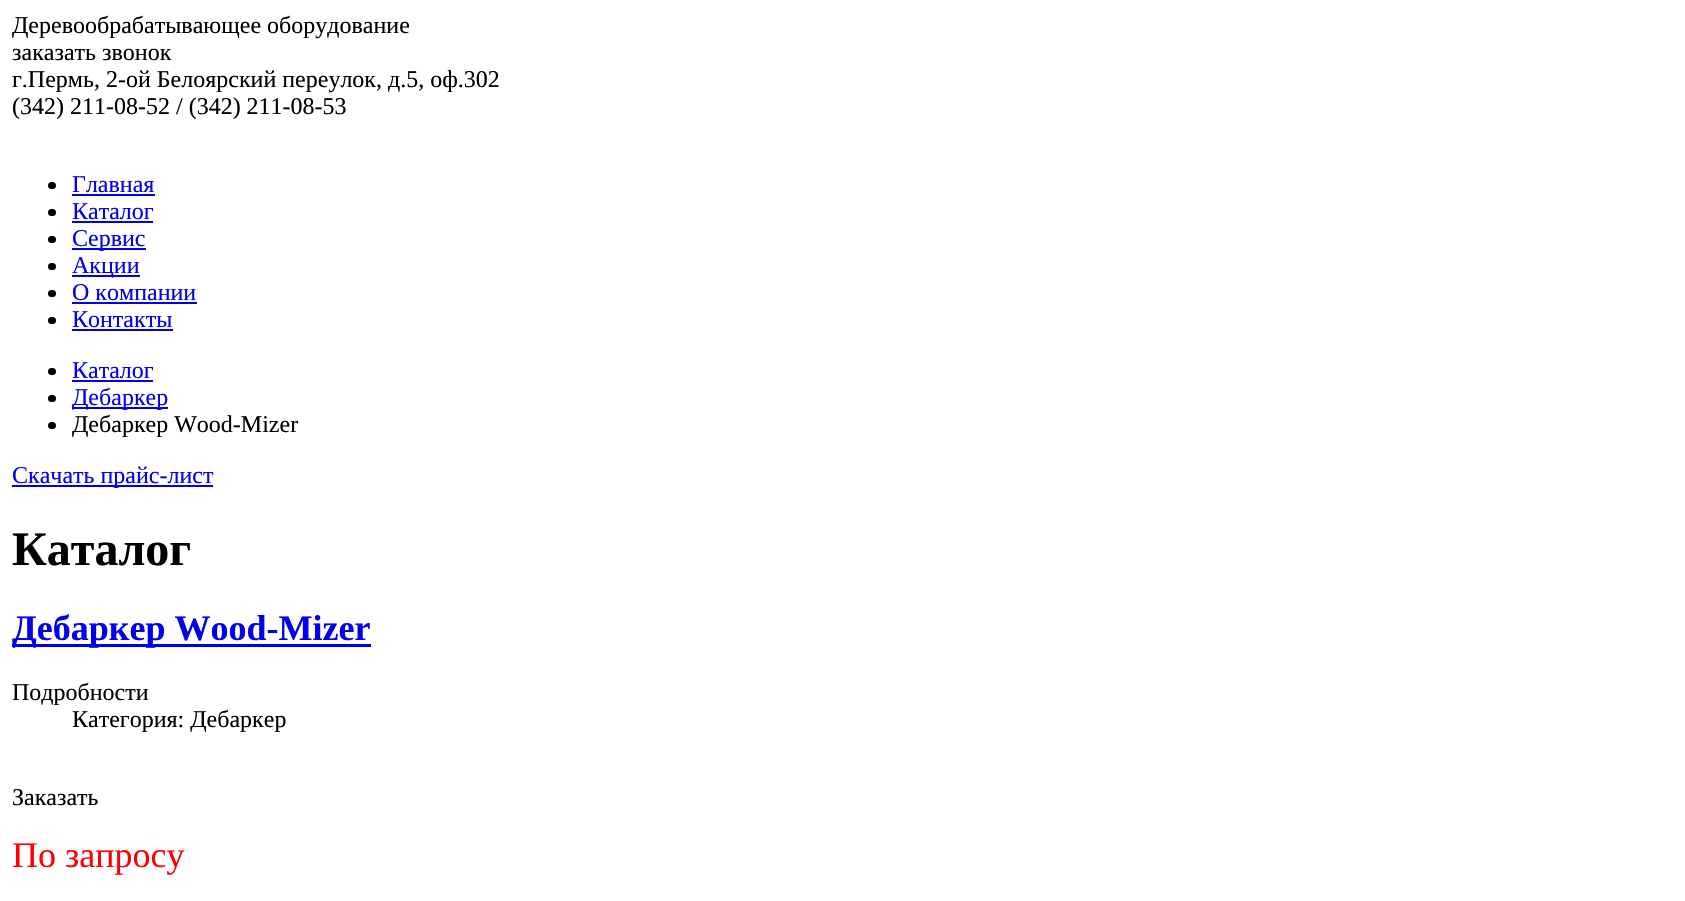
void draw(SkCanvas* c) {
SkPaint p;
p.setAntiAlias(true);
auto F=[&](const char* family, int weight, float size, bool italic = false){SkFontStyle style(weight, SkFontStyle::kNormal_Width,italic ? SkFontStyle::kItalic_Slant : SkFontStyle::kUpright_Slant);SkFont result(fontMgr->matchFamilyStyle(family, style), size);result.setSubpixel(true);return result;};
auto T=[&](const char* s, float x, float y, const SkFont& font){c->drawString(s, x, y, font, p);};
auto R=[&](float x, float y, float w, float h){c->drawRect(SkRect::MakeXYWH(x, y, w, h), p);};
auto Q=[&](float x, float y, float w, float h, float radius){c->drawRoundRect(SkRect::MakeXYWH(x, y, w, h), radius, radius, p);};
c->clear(0xffffffff);
auto f1 = F("Liberation Serif",400,24);
p.setColor(0xff000000);
T("Деревообрабатывающее оборудование",12,33,f1);
T("заказать звонок",12,60,f1);
T("г.Пермь, 2-ой Белоярский переулок, д.5, оф.302",12,87,f1);
T("(342) 211-08-52 / (342) 211-08-53",12,114,f1);
Q(48,182,8,7,3.5);
p.setColor(0xff0000ee);
T("Главная",72,192,f1);
R(72,194,83,2);
p.setColor(0xff000000);
Q(48,209,8,7,3.5);
p.setColor(0xff0000ee);
T("Каталог",72,219,f1);
R(72,221,81,2);
p.setColor(0xff000000);
Q(48,236,8,7,3.5);
p.setColor(0xff0000ee);
R(72,248,74,2);
T("Сервис",72,246,f1);
p.setColor(0xff000000);
Q(48,263,8,7,3.5);
p.setColor(0xff0000ee);
R(72,275,68,2);
T("Акции",72,273,f1);
p.setColor(0xff000000);
Q(48,290,8,7,3.5);
p.setColor(0xff0000ee);
T("О компании",72,300,f1);
R(72,302,125,2);
p.setColor(0xff000000);
Q(48,317,8,7,3.5);
p.setColor(0xff0000ee);
T("Контакты",72,327,f1);
R(72,329,101,2);
p.setColor(0xff000000);
Q(48,368,8,7,3.5);
p.setColor(0xff0000ee);
T("Каталог",72,378,f1);
R(72,380,81,2);
p.setColor(0xff000000);
Q(48,395,8,7,3.5);
p.setColor(0xff0000ee);
R(72,407,96,2);
T("Дебаркер",72,405,f1);
p.setColor(0xff000000);
Q(48,422,8,7,3.5);
T("Дебаркер Wood-Mizer",72,432,f1);
p.setColor(0xff0000ee);
R(12,485,201,2);
T("Скачать прайс-лист",12,483,f1);
auto f2 = F("Liberation Serif",700,48);
p.setColor(0xff000000);
T("Каталог",12,565,f2);
p.setColor(0xff0000ee);
R(12,644,359,3);
auto f3 = F("Liberation Serif",700,36);
T("Дебаркер Wood-Mizer",12,640,f3);
p.setColor(0xff000000);
T("Подробности",12,700,f1);
T("Категория: Дебаркер",72,727,f1);
T("Заказать",12,805,f1);
auto f4 = F("Liberation Serif",400,36);
p.setColor(0xffff0000);
T("По запросу",12,867,f4);
}
